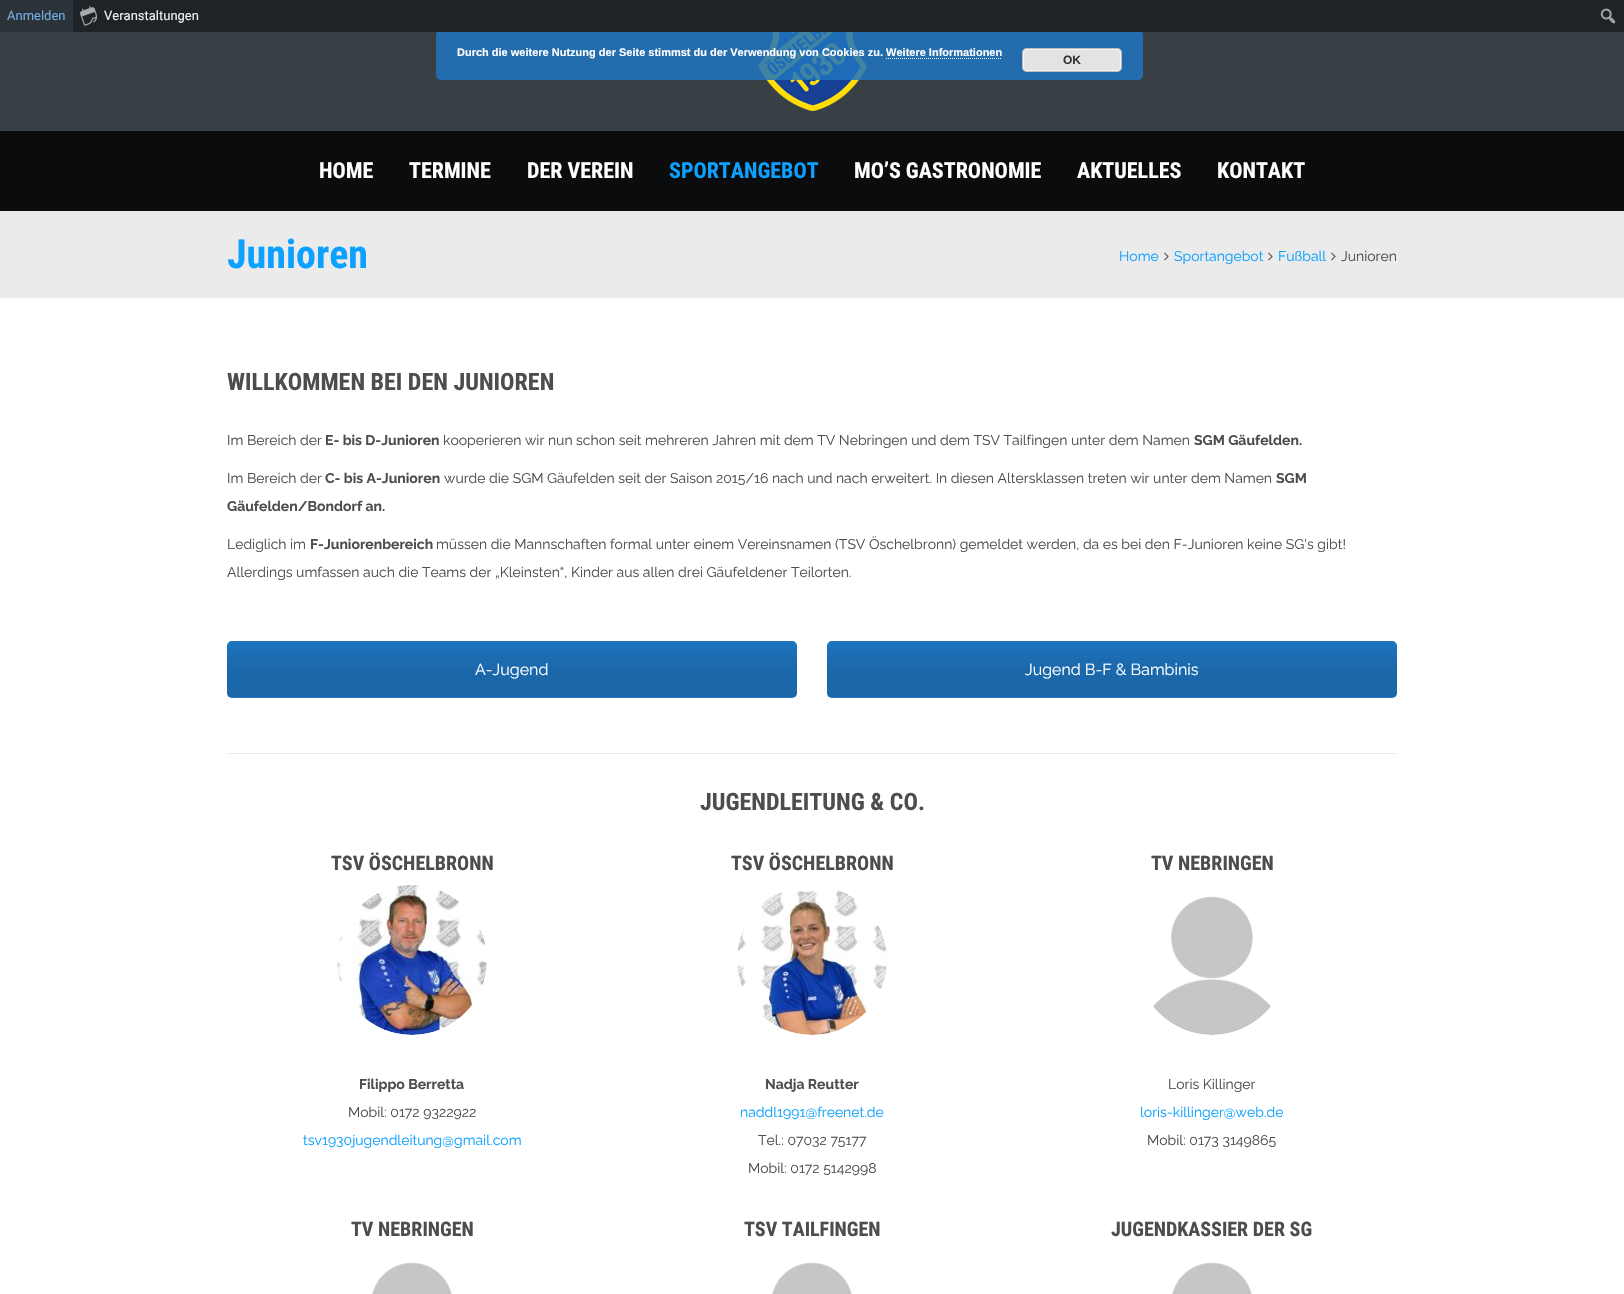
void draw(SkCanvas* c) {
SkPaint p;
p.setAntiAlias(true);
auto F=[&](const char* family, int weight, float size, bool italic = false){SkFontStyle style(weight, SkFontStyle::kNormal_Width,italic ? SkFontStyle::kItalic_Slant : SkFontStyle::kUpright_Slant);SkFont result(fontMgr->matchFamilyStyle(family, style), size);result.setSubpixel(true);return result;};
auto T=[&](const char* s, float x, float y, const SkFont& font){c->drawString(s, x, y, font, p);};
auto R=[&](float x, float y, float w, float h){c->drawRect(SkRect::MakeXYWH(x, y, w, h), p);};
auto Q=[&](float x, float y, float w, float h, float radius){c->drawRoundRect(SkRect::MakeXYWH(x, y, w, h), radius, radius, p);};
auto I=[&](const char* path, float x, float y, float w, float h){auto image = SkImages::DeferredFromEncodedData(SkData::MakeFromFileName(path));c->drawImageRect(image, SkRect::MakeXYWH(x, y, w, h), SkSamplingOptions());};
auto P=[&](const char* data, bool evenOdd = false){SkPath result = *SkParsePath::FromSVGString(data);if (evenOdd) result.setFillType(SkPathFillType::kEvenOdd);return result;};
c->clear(0xffffffff);
p.setColor(0xff384046);
R(0,32,1624,99);
I("3.png",758,32,109,79);
p.setColor(0xd91e73be);
Q(436,30,707,50,5);
p.setColor(0xff1d2327);
R(73,0,1551,32);
p.setColor(0xff2c3338);
R(0,0,73,32);
auto f1 = F("Roboto",400,13);
p.setColor(0xff72aee6);
T("Anmelden",7,20,f1);
I("1.png",80,6,17,20);
p.setColor(0xfff0f0f1);
T("Veranstaltungen",104,20,f1);
I("2.png",1600,8,16,16);
auto f2 = F("Liberation Sans",700,11);
p.setColor(0xffffffff);
T("Durch die weitere Nutzung der Seite stimmst du der Verwendung von Cookies zu. Weitere Informationen",457,56,f2);
p.setStroke(true);
p.setStrokeWidth(1);
p.setPathEffect(SkDashPathEffect::Make({{1,1}}, 0));
c->drawPath(P("M886 58.5h116"),p);
p.setPathEffect(nullptr);
p.setStroke(false);
p.setColor(0xffe3e3e3);
Q(1022,48,100,24,5);
p.setStroke(true);
p.setColor(0xfff6f6f6);
c->drawRoundRect(SkRect::MakeXYWH(1023.5,49.5,97,21),3.5,3.5,p);
p.setColor(0xffbbbbbb);
c->drawRoundRect(SkRect::MakeXYWH(1022.5,48.5,99,23),4.5,4.5,p);
auto f3 = F("Liberation Sans",700,12);
p.setStroke(false);
p.setColor(0xff333333);
T("OK",1063,64,f3);
p.setColor(0xff0b0c0e);
R(0,131,1624,80);
auto f4 = F("Roboto Condensed",700,22);
p.setColor(0xffffffff);
T("HOME",319,178,f4);
T("TERMINE",409,178,f4);
T("DER VEREIN",527,178,f4);
p.setColor(0xff0da1ff);
T("SPORTANGEBOT",669,178,f4);
p.setColor(0xffffffff);
T("MO’S GASTRONOMIE",854,178,f4);
T("AKTUELLES",1077,178,f4);
T("KONTAKT",1217,178,f4);
p.setColor(0xffebebeb);
R(0,211,1624,87);
auto f5 = F("Roboto Condensed",700,40);
p.setColor(0xff0da1ff);
T("Junioren",227,268,f5);
auto f6 = F("Raleway",400,14);
T("Home",1119,261,f6);
I("4.png",1164,252,5,9);
T("Sportangebot",1174,261,f6);
I("4.png",1268,252,5,9);
T("Fußball",1278,261,f6);
I("4.png",1331,252,5,9);
p.setColor(0xff4d4d4d);
T("Junioren",1341,261,f6);
auto f7 = F("Roboto Condensed",700,24);
T("WILLKOMMEN BEI DEN JUNIOREN",227,390,f7);
T("Im Bereich der",227,445,f6);
auto f8 = F("Raleway",700,14);
T("E- bis D-Junioren",325,445,f8);
T("kooperieren wir nun schon seit mehreren Jahren mit dem TV Nebringen und dem TSV Tailfingen unter dem Namen",443,445,f6);
T("SGM Gäufelden.",1194,445,f8);
T("Im Bereich der",227,483,f6);
T("C- bis A-Junioren",325,483,f8);
T("wurde die SGM Gäufelden seit der Saison 2015/16 nach und nach erweitert. In diesen Altersklassen treten wir unter dem Namen",444,483,f6);
T("SGM",1276,483,f8);
T("Gäufelden/Bondorf an.",227,511,f8);
T("Lediglich im",227,549,f6);
T("F-Juniorenbereich",310,549,f8);
T("müssen die Mannschaften formal unter einem Vereinsnamen (TSV Öschelbronn) gemeldet werden, da es bei den F-Junioren keine SG's gibt!",436,549,f6);
T("Allerdings umfassen auch die Teams der „Kleinsten“, Kinder aus allen drei Gäufeldener Teilorten.",227,577,f6);
p.setColor(0xff1e73be);
Q(227,641,570,57,5);
c->save();
c->clipPath(P("M232 641h560c3 0 5 2 5 5v47c0 3-2 5-5 5h-560c-3 0-5-2-5-5v-47c0-3 2-5 5-5z"),true);
{
const SkColor colors[] = {0x00000000,0x1a000000,0x1a000000};
const float stops[] = {0,.5,1};
const SkPoint ends[] = {{796,642}, {796,697}};
p.setShader(SkGradientShader::MakeLinear(ends, colors, stops, 3, SkTileMode::kClamp));
p.setAlpha(255);
}
R(227,648,570,49);
c->restore();
auto f9 = F("Raleway",400,16);
p.setShader(nullptr);
p.setColor(0xffffffff);
T("A-Jugend",475,675,f9);
p.setColor(0xff1e73be);
Q(827,641,570,57,5);
c->save();
c->clipPath(P("M832 641h560c3 0 5 2 5 5v47c0 3-2 5-5 5h-560c-3 0-5-2-5-5v-47c0-3 2-5 5-5z"),true);
{
const SkColor colors[] = {0x00000000,0x1a000000,0x1a000000};
const float stops[] = {0,.5,1};
const SkPoint ends[] = {{1396,642}, {1396,697}};
p.setShader(SkGradientShader::MakeLinear(ends, colors, stops, 3, SkTileMode::kClamp));
p.setAlpha(255);
}
R(827,648,570,49);
c->restore();
p.setShader(nullptr);
p.setColor(0xffffffff);
T("Jugend B-F & Bambinis",1025,675,f9);
p.setColor(0xffebebeb);
R(227,753,1170,1);
p.setColor(0xff4d4d4d);
T("JUGENDLEITUNG & CO.",700,810,f7);
auto f10 = F("Roboto Condensed",700,20);
T("TSV ÖSCHELBRONN",331,870,f10);
I("5.png",337,885,150,150);
T("Filippo Berretta",359,1089,f8);
T("Mobil: 0172 9322922",348,1117,f6);
p.setColor(0xff0da1ff);
T("tsv1930jugendleitung@gmail.com",303,1145,f6);
p.setColor(0xff4d4d4d);
T("TSV ÖSCHELBRONN",731,870,f10);
I("6.png",737,890,150,145);
T("Nadja Reutter",765,1089,f8);
p.setColor(0xff0da1ff);
T("naddl1991@freenet.de",740,1117,f6);
p.setColor(0xff4d4d4d);
T("Tel.: 07032 75177",758,1145,f6);
T("Mobil: 0172 5142998",748,1173,f6);
T("TV NEBRINGEN",1151,870,f10);
I("7.png",1153,896,118,139);
T("Loris Killinger",1168,1089,f6);
p.setColor(0xff0da1ff);
T("loris-killinger@web.de",1140,1117,f6);
p.setColor(0xff4d4d4d);
T("Mobil: 0173 3149865",1147,1145,f6);
T("TV NEBRINGEN",351,1236,f10);
I("8.png",372,1262,80,32);
T("TSV TAILFINGEN",744,1236,f10);
I("8.png",772,1262,80,32);
T("JUGENDKASSIER DER SG",1111,1236,f10);
I("8.png",1172,1262,80,32);
}
